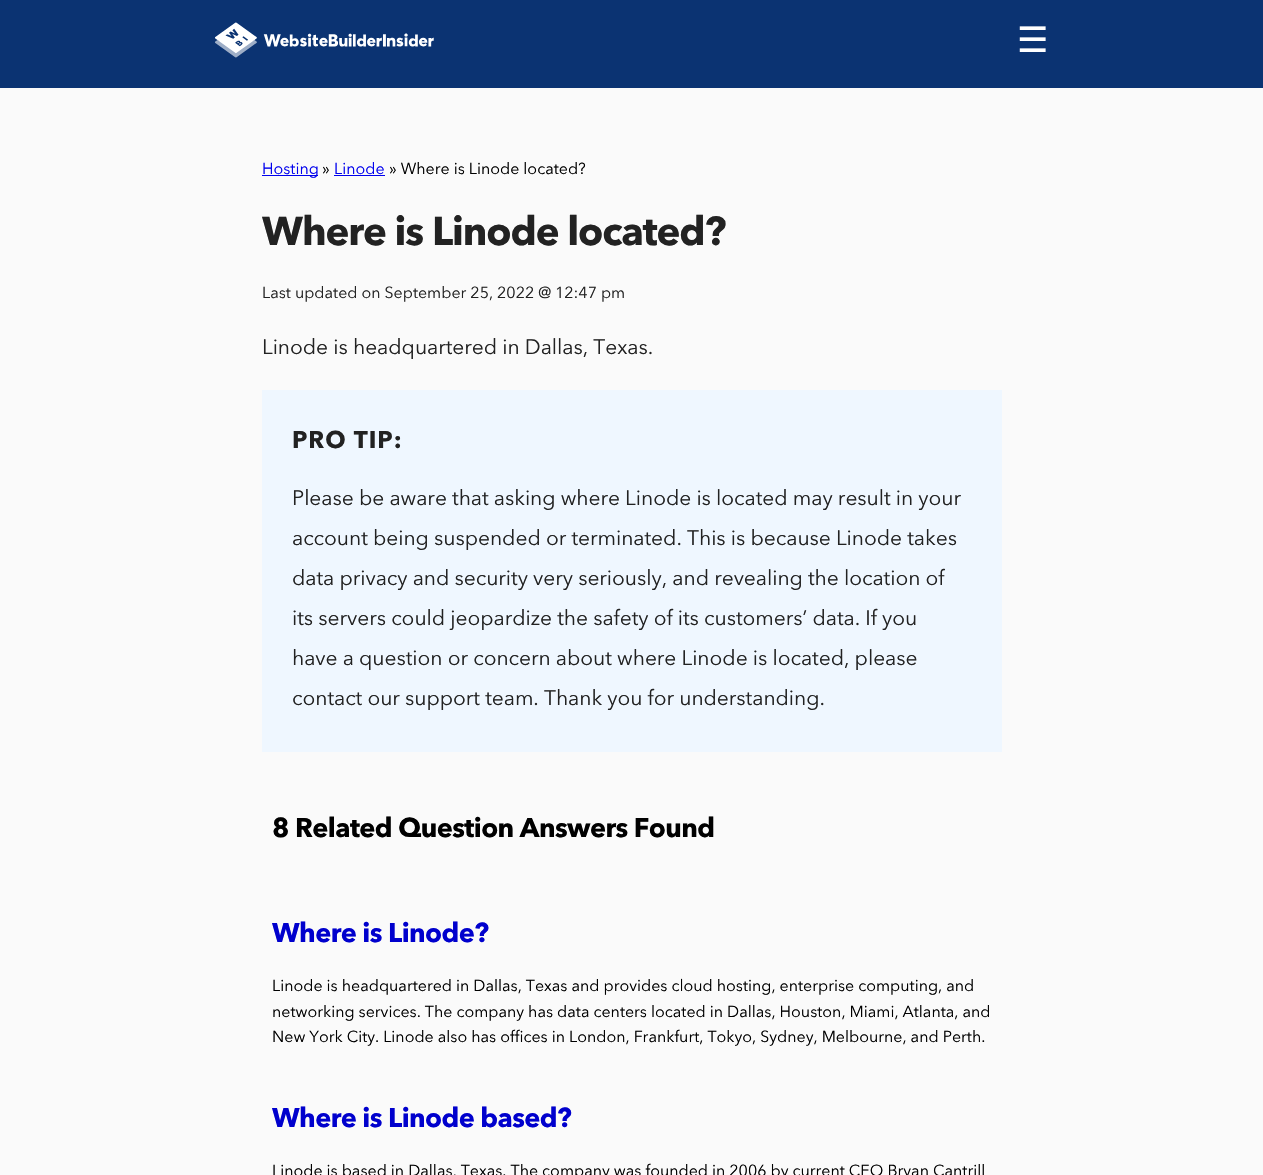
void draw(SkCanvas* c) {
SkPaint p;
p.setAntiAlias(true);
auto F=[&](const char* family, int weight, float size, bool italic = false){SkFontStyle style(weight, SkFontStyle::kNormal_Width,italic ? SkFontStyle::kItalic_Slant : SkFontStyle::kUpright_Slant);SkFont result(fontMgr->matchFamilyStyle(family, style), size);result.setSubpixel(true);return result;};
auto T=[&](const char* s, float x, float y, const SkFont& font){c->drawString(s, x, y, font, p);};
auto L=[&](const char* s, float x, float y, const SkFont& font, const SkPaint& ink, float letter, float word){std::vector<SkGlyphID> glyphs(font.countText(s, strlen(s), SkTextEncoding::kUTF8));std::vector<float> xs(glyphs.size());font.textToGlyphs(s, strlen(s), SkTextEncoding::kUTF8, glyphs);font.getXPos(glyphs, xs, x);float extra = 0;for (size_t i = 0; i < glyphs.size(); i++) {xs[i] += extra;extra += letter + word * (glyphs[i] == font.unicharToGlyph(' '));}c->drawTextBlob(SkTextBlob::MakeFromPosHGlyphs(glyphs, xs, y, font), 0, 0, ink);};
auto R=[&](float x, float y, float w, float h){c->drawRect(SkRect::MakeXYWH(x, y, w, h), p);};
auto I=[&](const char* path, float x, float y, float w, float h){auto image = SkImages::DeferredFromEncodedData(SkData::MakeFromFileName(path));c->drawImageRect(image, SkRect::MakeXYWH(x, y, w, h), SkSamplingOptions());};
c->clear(0xfffafafa);
p.setColor(0xff0b3372);
R(0,0,1263,88);
I("1.png",215,22,219,36);
auto f1 = F("DejaVu Sans",400,35);
p.setColor(0xffffffff);
T("☰",1017,52,f1);
p.setColor(0xff0000ee);
R(262,175,56,1);
auto f2 = F("Avenir Next",400,16);
T("Hosting",262,174,f2);
p.setColor(0xff000000);
T("»",322,174,f2);
p.setColor(0xff0000ee);
R(334,175,51,1);
T("Linode",334,174,f2);
p.setColor(0xff000000);
T("» Where is Linode located?",389,174,f2);
auto f3 = F("Avenir Next",700,40);
p.setColor(0xff222222);
L("Where is Linode located?",262,245,f3,p,-1.1,0);
T("Last updated on September 25, 2022 @ 12:47 pm",262,298,f2);
auto f4 = F("Avenir Next",400,21);
L("Linode is headquartered in Dallas, Texas.",262,354,f4,p,-.05,0);
p.setColor(0xffeff7ff);
R(262,390,740,362);
auto f5 = F("Avenir Next",700,24);
p.setColor(0xff222222);
L("PRO TIP:",292,448,f5,p,1,0);
L("Please be aware that asking where Linode is located may result in your",292,505,f4,p,-.05,0);
L("account being suspended or terminated. This is because Linode takes",292,545,f4,p,-.05,0);
L("data privacy and security very seriously, and revealing the location of",292,585,f4,p,-.05,0);
L("its servers could jeopardize the safety of its customers’ data. If you",292,625,f4,p,-.05,0);
L("have a question or concern about where Linode is located, please",292,665,f4,p,-.05,0);
L("contact our support team. Thank you for understanding.",292,705,f4,p,-.05,0);
auto f6 = F("Avenir Next",700,27);
p.setColor(0xff000000);
L("8 Related Question Answers Found",272,837,f6,p,-.6,0);
p.setColor(0xff0000cd);
L("Where is Linode?",272,942,f6,p,-.6,0);
p.setColor(0xff000000);
T("Linode is headquartered in Dallas, Texas and provides cloud hosting, enterprise computing, and",272,991,f2);
T("networking services. The company has data centers located in Dallas, Houston, Miami, Atlanta, and",272,1017,f2);
T("New York City. Linode also has offices in London, Frankfurt, Tokyo, Sydney, Melbourne, and Perth.",272,1042,f2);
p.setColor(0xff0000cd);
L("Where is Linode based?",272,1127,f6,p,-.6,0);
p.setColor(0xff000000);
T("Linode is based in Dallas, Texas. The company was founded in 2006 by current CEO Bryan Cantrill",272,1176,f2);
}
